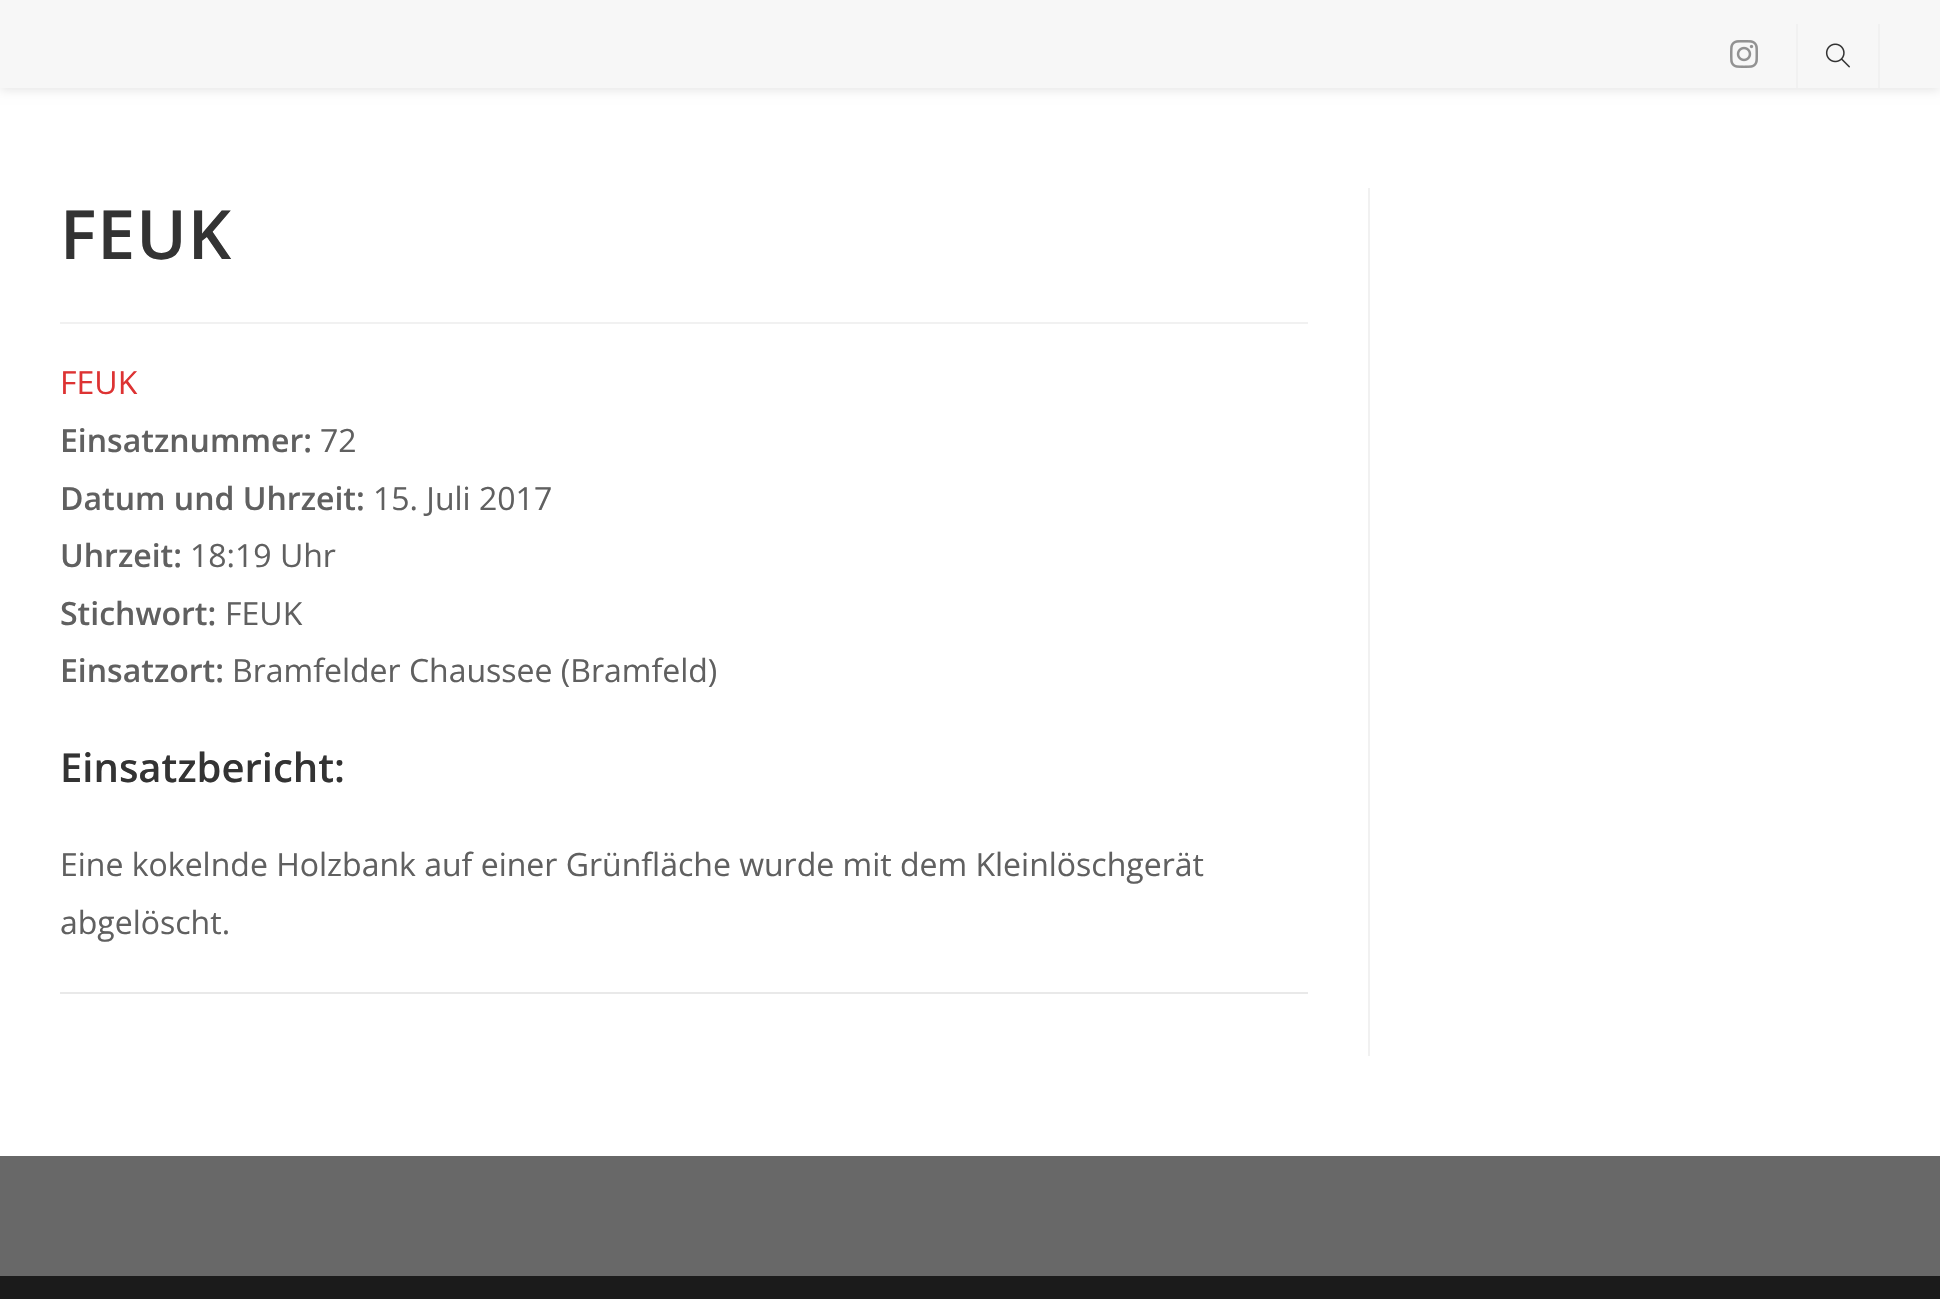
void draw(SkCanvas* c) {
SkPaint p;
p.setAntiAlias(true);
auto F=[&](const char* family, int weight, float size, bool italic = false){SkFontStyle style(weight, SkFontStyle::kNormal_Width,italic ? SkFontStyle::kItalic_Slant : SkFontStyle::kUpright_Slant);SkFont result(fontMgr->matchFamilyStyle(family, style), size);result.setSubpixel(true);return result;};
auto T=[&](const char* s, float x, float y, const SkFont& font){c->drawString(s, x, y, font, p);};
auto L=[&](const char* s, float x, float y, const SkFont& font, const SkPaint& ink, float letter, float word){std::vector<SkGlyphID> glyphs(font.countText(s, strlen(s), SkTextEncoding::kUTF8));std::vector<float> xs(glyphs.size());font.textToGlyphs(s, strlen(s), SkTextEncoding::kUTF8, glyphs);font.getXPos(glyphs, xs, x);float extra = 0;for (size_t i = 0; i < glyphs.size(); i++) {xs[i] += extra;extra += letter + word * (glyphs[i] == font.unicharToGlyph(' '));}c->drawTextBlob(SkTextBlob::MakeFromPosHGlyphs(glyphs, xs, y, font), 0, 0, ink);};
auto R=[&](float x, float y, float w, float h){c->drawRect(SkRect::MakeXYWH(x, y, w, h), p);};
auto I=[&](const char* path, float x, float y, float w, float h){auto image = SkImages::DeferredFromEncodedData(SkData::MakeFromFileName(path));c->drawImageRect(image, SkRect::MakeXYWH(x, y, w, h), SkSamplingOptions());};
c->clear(0xffffffff);
p.setColor(0x1a000000);
p.setMaskFilter(SkMaskFilter::MakeBlur(kNormal_SkBlurStyle, 5));
c->drawRect(SkRect::MakeXYWH(0,-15,1940,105),p);
p.setMaskFilter(nullptr);
p.setColor(0xfff7f7f7);
R(0,0,1940,88);
I("1.png",1730,40,28,28);
p.setColor(0xfff1f1f1);
R(1878,24,2,64);
R(1796,24,2,64);
I("2.png",1825,43,25,25);
R(1368,188,2,868);
R(60,322,1248,2);
auto f1 = F("Open Sans",600,68);
p.setColor(0xff333333);
L("FEUK",60,259,f1,p,1,0);
auto f2 = F("Open Sans",400,32);
p.setColor(0xffdd3333);
T("FEUK",60,394,f2);
auto f3 = F("Open Sans",600,32);
p.setColor(0xff606060);
T("Einsatznummer:",60,452,f3);
T("72",320,452,f2);
T("Datum und Uhrzeit:",60,510,f3);
T("15. Juli 2017",373,510,f2);
T("Uhrzeit:",60,567,f3);
T("18:19 Uhr",190,567,f2);
T("Stichwort:",60,625,f3);
T("FEUK",225,625,f2);
T("Einsatzort:",60,682,f3);
T("Bramfelder Chaussee (Bramfeld)",232,682,f2);
auto f4 = F("Open Sans",600,40);
p.setColor(0xff333333);
T("Einsatzbericht:",60,782,f4);
p.setColor(0xff606060);
T("Eine kokelnde Holzbank auf einer Grünfläche wurde mit dem Kleinlöschgerät",60,876,f2);
T("abgelöscht.",60,934,f2);
p.setColor(0xffe9e9e9);
R(60,992,1248,2);
p.setColor(0xff686868);
R(0,1156,1940,120);
p.setColor(0xff1b1b1b);
R(0,1276,1940,23);
}
